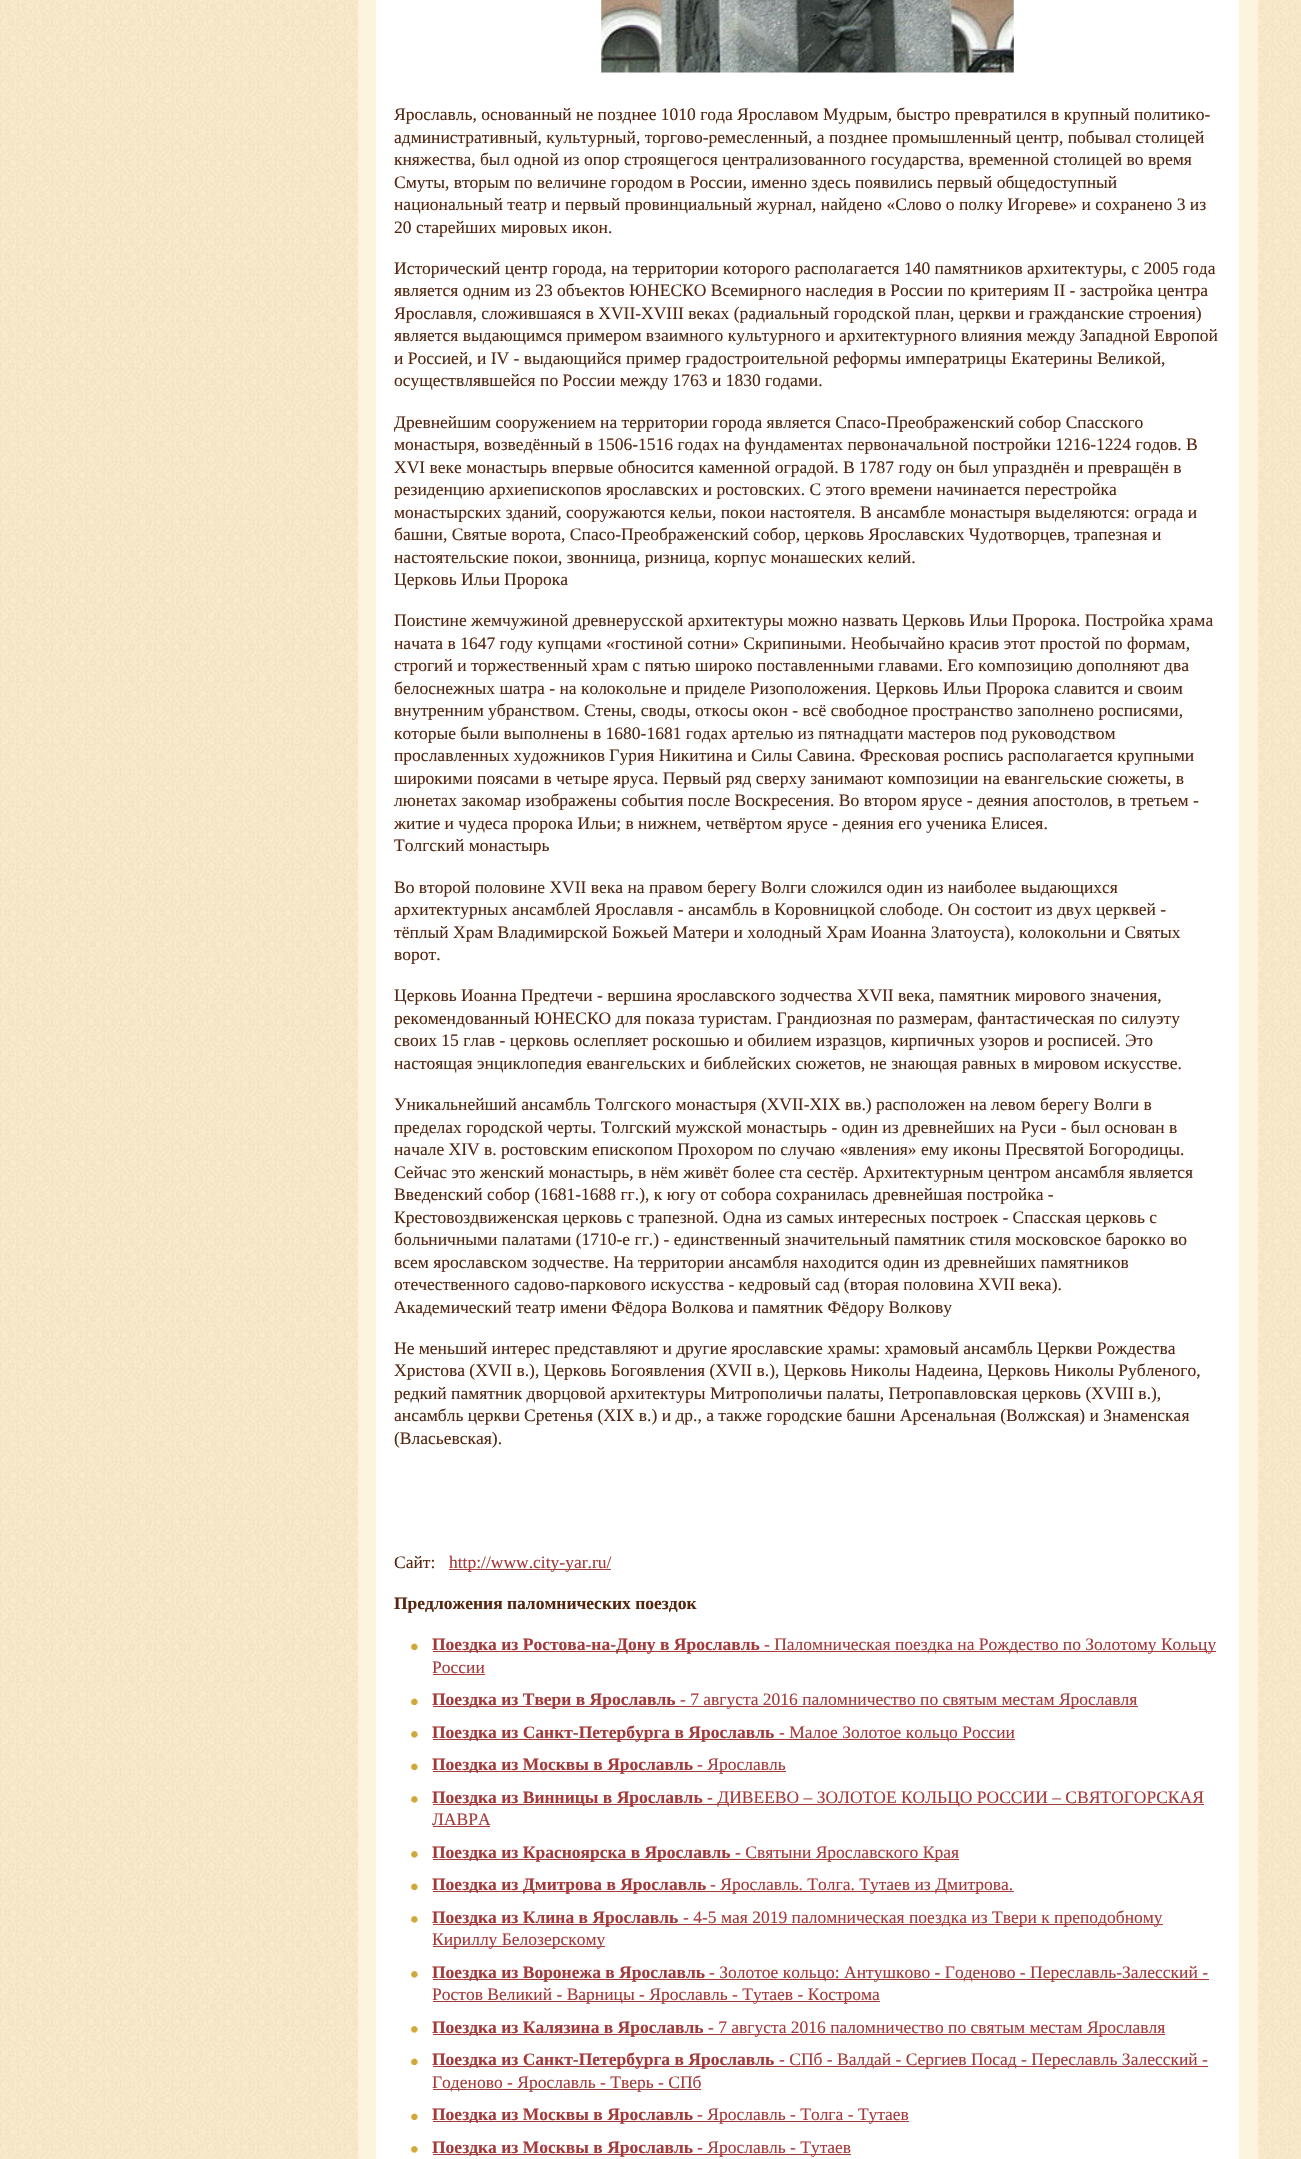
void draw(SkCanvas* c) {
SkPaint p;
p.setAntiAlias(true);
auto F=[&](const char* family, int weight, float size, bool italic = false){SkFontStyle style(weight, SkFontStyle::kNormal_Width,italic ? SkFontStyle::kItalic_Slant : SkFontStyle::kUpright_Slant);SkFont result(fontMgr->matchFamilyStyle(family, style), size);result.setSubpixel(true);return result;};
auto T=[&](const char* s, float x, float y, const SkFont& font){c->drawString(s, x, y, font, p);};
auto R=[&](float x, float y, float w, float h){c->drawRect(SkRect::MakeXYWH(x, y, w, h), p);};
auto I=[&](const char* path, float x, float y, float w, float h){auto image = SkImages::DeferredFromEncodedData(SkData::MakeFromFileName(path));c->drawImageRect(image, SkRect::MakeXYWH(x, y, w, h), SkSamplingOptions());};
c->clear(0xffffffff);
I("1.png",0,0,1301,2159);
p.setColor(0xfffdf4de);
R(358,0,900,2159);
p.setColor(0xffffffff);
R(376,0,863,2159);
I("2.png",601,0,413,73);
auto f1 = F("Liberation Serif",400,17.5);
p.setColor(0xff56260f);
T("Ярославль, основанный не позднее 1010 года Ярославом Мудрым, быстро превратился в крупный политико-",394,120,f1);
T("административный, культурный, торгово-ремесленный, а позднее промышленный центр, побывал столицей",394,143,f1);
T("княжества, был одной из опор строящегося централизованного государства, временной столицей во время",394,165,f1);
T("Смуты, вторым по величине городом в России, именно здесь появились первый общедоступный",394,188,f1);
T("национальный театр и первый провинциальный журнал, найдено «Слово о полку Игореве» и сохранено 3 из",394,210,f1);
T("20 старейших мировых икон.",394,233,f1);
T("Исторический центр города, на территории которого располагается 140 памятников архитектуры, с 2005 года",394,274,f1);
T("является одним из 23 объектов ЮНЕСКО Всемирного наследия в России по критериям II - застройка центра",394,296,f1);
T("Ярославля, сложившаяся в XVII-XVIII веках (радиальный городской план, церкви и гражданские строения)",394,319,f1);
T("является выдающимся примером взаимного культурного и архитектурного влияния между Западной Европой",394,341,f1);
T("и Россией, и IV - выдающийся пример градостроительной реформы императрицы Екатерины Великой,",394,364,f1);
T("осуществлявшейся по России между 1763 и 1830 годами.",394,386,f1);
T("Древнейшим сооружением на территории города является Спасо-Преображенский собор Спасского",394,428,f1);
T("монастыря, возведённый в 1506-1516 годах на фундаментах первоначальной постройки 1216-1224 годов. В",394,450,f1);
T("XVI веке монастырь впервые обносится каменной оградой. В 1787 году он был упразднён и превращён в",394,473,f1);
T("резиденцию архиепископов ярославских и ростовских. С этого времени начинается перестройка",394,495,f1);
T("монастырских зданий, сооружаются кельи, покои настоятеля. В ансамбле монастыря выделяются: ограда и",394,518,f1);
T("башни, Святые ворота, Спасо-Преображенский собор, церковь Ярославских Чудотворцев, трапезная и",394,540,f1);
T("настоятельские покои, звонница, ризница, корпус монашеских келий.",394,563,f1);
T("Церковь Ильи Пророка",394,585,f1);
T("Поистине жемчужиной древнерусской архитектуры можно назвать Церковь Ильи Пророка. Постройка храма",394,626,f1);
T("начата в 1647 году купцами «гостиной сотни» Скрипиными. Необычайно красив этот простой по формам,",394,649,f1);
T("строгий и торжественный храм с пятью широко поставленными главами. Его композицию дополняют два",394,671,f1);
T("белоснежных шатра - на колокольне и приделе Ризоположения. Церковь Ильи Пророка славится и своим",394,694,f1);
T("внутренним убранством. Стены, своды, откосы окон - всё свободное пространство заполнено росписями,",394,716,f1);
T("которые были выполнены в 1680-1681 годах артелью из пятнадцати мастеров под руководством",394,739,f1);
T("прославленных художников Гурия Никитина и Силы Савина. Фресковая роспись располагается крупными",394,761,f1);
T("широкими поясами в четыре яруса. Первый ряд сверху занимают композиции на евангельские сюжеты, в",394,784,f1);
T("люнетах закомар изображены события после Воскресения. Во втором ярусе - деяния апостолов, в третьем -",394,806,f1);
T("житие и чудеса пророка Ильи; в нижнем, четвёртом ярусе - деяния его ученика Елисея.",394,829,f1);
T("Толгский монастырь",394,851,f1);
T("Во второй половине XVII века на правом берегу Волги сложился один из наиболее выдающихся",394,893,f1);
T("архитектурных ансамблей Ярославля - ансамбль в Коровницкой слободе. Он состоит из двух церквей -",394,915,f1);
T("тёплый Храм Владимирской Божьей Матери и холодный Храм Иоанна Златоуста), колокольни и Святых",394,938,f1);
T("ворот.",394,960,f1);
T("Церковь Иоанна Предтечи - вершина ярославского зодчества XVII века, памятник мирового значения,",394,1001,f1);
T("рекомендованный ЮНЕСКО для показа туристам. Грандиозная по размерам, фантастическая по силуэту",394,1024,f1);
T("своих 15 глав - церковь ослепляет роскошью и обилием изразцов, кирпичных узоров и росписей. Это",394,1046,f1);
T("настоящая энциклопедия евангельских и библейских сюжетов, не знающая равных в мировом искусстве.",394,1069,f1);
T("Уникальнейший ансамбль Толгского монастыря (XVII-XIX вв.) расположен на левом берегу Волги в",394,1110,f1);
T("пределах городской черты. Толгский мужской монастырь - один из древнейших на Руси - был основан в",394,1133,f1);
T("начале XIV в. ростовским епископом Прохором по случаю «явления» ему иконы Пресвятой Богородицы.",394,1155,f1);
T("Сейчас это женский монастырь, в нём живёт более ста сестёр. Архитектурным центром ансамбля является",394,1178,f1);
T("Введенский собор (1681-1688 гг.), к югу от собора сохранилась древнейшая постройка -",394,1200,f1);
T("Крестовоздвиженская церковь с трапезной. Одна из самых интересных построек - Спасская церковь с",394,1223,f1);
T("больничными палатами (1710-е гг.) - единственный значительный памятник стиля московское барокко во",394,1245,f1);
T("всем ярославском зодчестве. На территории ансамбля находится один из древнейших памятников",394,1268,f1);
T("отечественного садово-паркового искусства - кедровый сад (вторая половина XVII века).",394,1290,f1);
T("Академический театр имени Фёдора Волкова и памятник Фёдору Волкову",394,1313,f1);
T("Не меньший интерес представляют и другие ярославские храмы: храмовый ансамбль Церкви Рождества",394,1354,f1);
T("Христова (XVII в.), Церковь Богоявления (XVII в.), Церковь Николы Надеина, Церковь Николы Рубленого,",394,1376,f1);
T("редкий памятник дворцовой архитектуры Митрополичьи палаты, Петропавловская церковь (XVIII в.),",394,1399,f1);
T("ансамбль церкви Сретенья (XIX в.) и др., а также городские башни Арсенальная (Волжская) и Знаменская",394,1421,f1);
T("(Власьевская).",394,1444,f1);
T("Сайт:",394,1568,f1);
p.setColor(0xffa53a3a);
R(449,1569,162,1);
T("http://www.city-yar.ru/",449,1568,f1);
auto f2 = F("Liberation Serif",700,17.5);
p.setColor(0xff56260f);
T("Предложения паломнических поездок",394,1609,f2);
I("3.png",411,1643,7,7);
p.setColor(0xffa53a3a);
R(433,1651,783,1);
T("Поездка из Ростова-на-Дону в Ярославль",432,1650,f2);
T("- Паломническая поездка на Рождество по Золотому Кольцу",764,1650,f1);
T("России",432,1673,f1);
R(433,1674,52,1);
I("3.png",411,1698,7,7);
R(433,1706,242,1);
T("Поездка из Твери в Ярославль",432,1705,f2);
R(675,1706,463,1);
T("- 7 августа 2016 паломничество по святым местам Ярославля",680,1705,f1);
I("4.png",411,1731,7,7);
R(433,1739,582,1);
T("Поездка из Санкт-Петербурга в Ярославль",432,1738,f2);
T("- Малое Золотое кольцо России",779,1738,f1);
I("3.png",411,1763,7,7);
R(433,1771,353,1);
T("Поездка из Москвы в Ярославль",432,1770,f2);
T("- Ярославль",697,1770,f1);
I("5.png",411,1796,7,7);
R(433,1804,771,1);
T("Поездка из Винницы в Ярославль",432,1803,f2);
T("- ДИВЕЕВО – ЗОЛОТОЕ КОЛЬЦО РОССИИ – СВЯТОГОРСКАЯ",707,1803,f1);
T("ЛАВРА",432,1825,f1);
R(433,1826,57,1);
I("4.png",411,1851,7,7);
R(433,1859,526,1);
T("Поездка из Красноярска в Ярославль",432,1858,f2);
T("- Святыни Ярославского Края",735,1858,f1);
I("3.png",411,1883,7,7);
R(433,1891,581,1);
T("Поездка из Дмитрова в Ярославль",432,1890,f2);
T("- Ярославль. Толга. Тутаев из Дмитрова.",710,1890,f1);
I("4.png",411,1916,7,7);
R(433,1924,730,1);
T("Поездка из Клина в Ярославль",432,1923,f2);
T("- 4-5 мая 2019 паломническая поездка из Твери к преподобному",683,1923,f1);
R(433,1946,172,1);
T("Кириллу Белозерскому",432,1945,f1);
I("4.png",411,1971,7,7);
R(433,1979,776,1);
T("Поездка из Воронежа в Ярославль",432,1978,f2);
T("- Золотое кольцо: Антушково - Годеново - Переславль-Залесский -",709,1978,f1);
R(433,2001,447,1);
T("Ростов Великий - Варницы - Ярославль - Тутаев - Кострома",432,2000,f1);
I("4.png",411,2026,7,7);
R(433,2034,732,1);
T("Поездка из Калязина в Ярославль",432,2033,f2);
T("- 7 августа 2016 паломничество по святым местам Ярославля",708,2033,f1);
I("3.png",411,2058,7,7);
R(433,2066,775,1);
T("Поездка из Санкт-Петербурга в Ярославль",432,2065,f2);
T("- СПб - Валдай - Сергиев Посад - Переславль Залесский -",779,2065,f1);
R(433,2089,268,1);
T("Годеново - Ярославль - Тверь - СПб",432,2088,f1);
I("3.png",411,2113,7,7);
R(433,2121,476,1);
T("Поездка из Москвы в Ярославль",432,2120,f2);
T("- Ярославль - Толга - Тутаев",697,2120,f1);
I("4.png",411,2146,7,7);
R(433,2154,418,1);
T("Поездка из Москвы в Ярославль",432,2153,f2);
T("- Ярославль - Тутаев",697,2153,f1);
}
